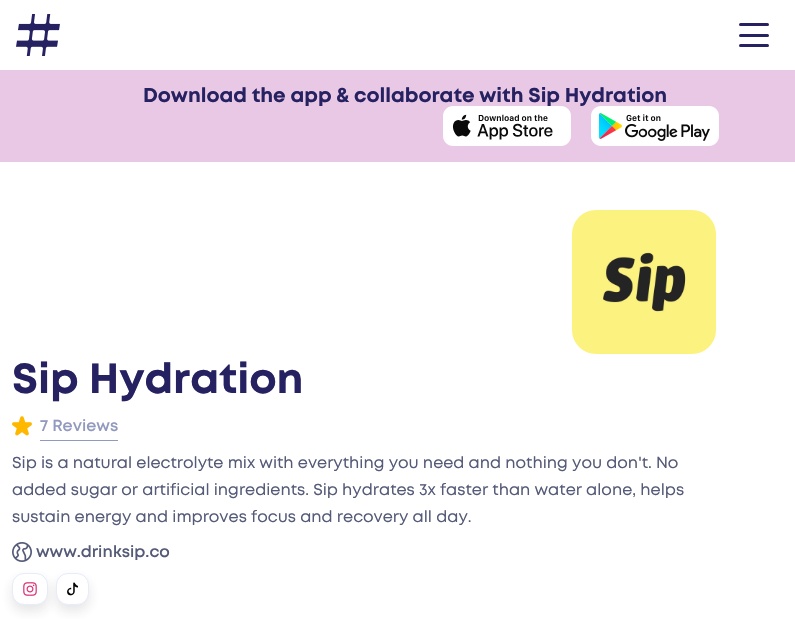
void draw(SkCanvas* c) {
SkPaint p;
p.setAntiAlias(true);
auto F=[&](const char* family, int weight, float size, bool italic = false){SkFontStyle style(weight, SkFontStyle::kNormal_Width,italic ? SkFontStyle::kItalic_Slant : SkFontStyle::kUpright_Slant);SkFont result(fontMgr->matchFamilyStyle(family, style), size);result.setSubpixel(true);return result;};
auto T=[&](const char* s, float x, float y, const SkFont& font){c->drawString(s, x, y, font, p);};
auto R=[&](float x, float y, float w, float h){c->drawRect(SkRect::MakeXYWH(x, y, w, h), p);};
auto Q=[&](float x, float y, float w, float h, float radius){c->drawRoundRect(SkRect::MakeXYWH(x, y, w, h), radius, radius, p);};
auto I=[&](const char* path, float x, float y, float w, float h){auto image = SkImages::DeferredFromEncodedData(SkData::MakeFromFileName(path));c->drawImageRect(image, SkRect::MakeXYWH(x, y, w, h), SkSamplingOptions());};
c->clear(0xffffffff);
I("1.png",16,14,44,42);
p.setColor(0xff262262);
Q(739,23,30,3,1.5);
Q(739,34,30,3,1.5);
Q(739,44,30,3,1.5);
p.setColor(0xffe9c8e5);
R(0,70,795,92);
auto f1 = F("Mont",700,20);
p.setColor(0xff262161);
T("Download the app & collaborate with Sip Hydration",143,102,f1);
I("2.png",443,106,128,40);
I("3.png",591,106,128,40);
I("4.png",572,210,144,144);
auto f2 = F("Mont",700,42);
T("Sip Hydration",12,393,f2);
I("5.png",12,416,20,20);
p.setColor(0xff9299be);
R(40,440,78,1);
auto f3 = F("Mont",600,16);
T("7 Reviews",40,431,f3);
auto f4 = F("Mont",400,16);
p.setColor(0xff545a77);
T("Sip is a natural electrolyte mix with everything you need and nothing you don't. No",12,468,f4);
T("added sugar or artificial ingredients. Sip hydrates 3x faster than water alone, helps",12,495,f4);
T("sustain energy and improves focus and recovery all day.",12,522,f4);
I("6.png",12,542,20,20);
T("www.drinksip.co",36,557,f3);
p.setColor(0x1f292b32);
p.setMaskFilter(SkMaskFilter::MakeBlur(kNormal_SkBlurStyle, 6));
c->drawRoundRect(SkRect::MakeXYWH(12,579,36,32),12,12,p);
p.setMaskFilter(nullptr);
p.setColor(0xffffffff);
c->drawRoundRect(SkRect::MakeXYWH(12.5,573.5,35,31),11.5,11.5,p);
p.setStroke(true);
p.setStrokeWidth(1);
p.setColor(0xffe7ebfb);
c->drawRoundRect(SkRect::MakeXYWH(12.5,573.5,35,31),11.5,11.5,p);
I("7.png",23,582,14,14);
p.setStroke(false);
p.setColor(0x1f292b32);
p.setMaskFilter(SkMaskFilter::MakeBlur(kNormal_SkBlurStyle, 6));
c->drawRoundRect(SkRect::MakeXYWH(56,579,33,32),12,12,p);
p.setMaskFilter(nullptr);
p.setColor(0xffffffff);
c->drawRoundRect(SkRect::MakeXYWH(56.5,573.5,32,31),11.5,11.5,p);
p.setStroke(true);
p.setColor(0xffe7ebfb);
c->drawRoundRect(SkRect::MakeXYWH(56.5,573.5,32,31),11.5,11.5,p);
I("8.png",67,582,11,14);
}
